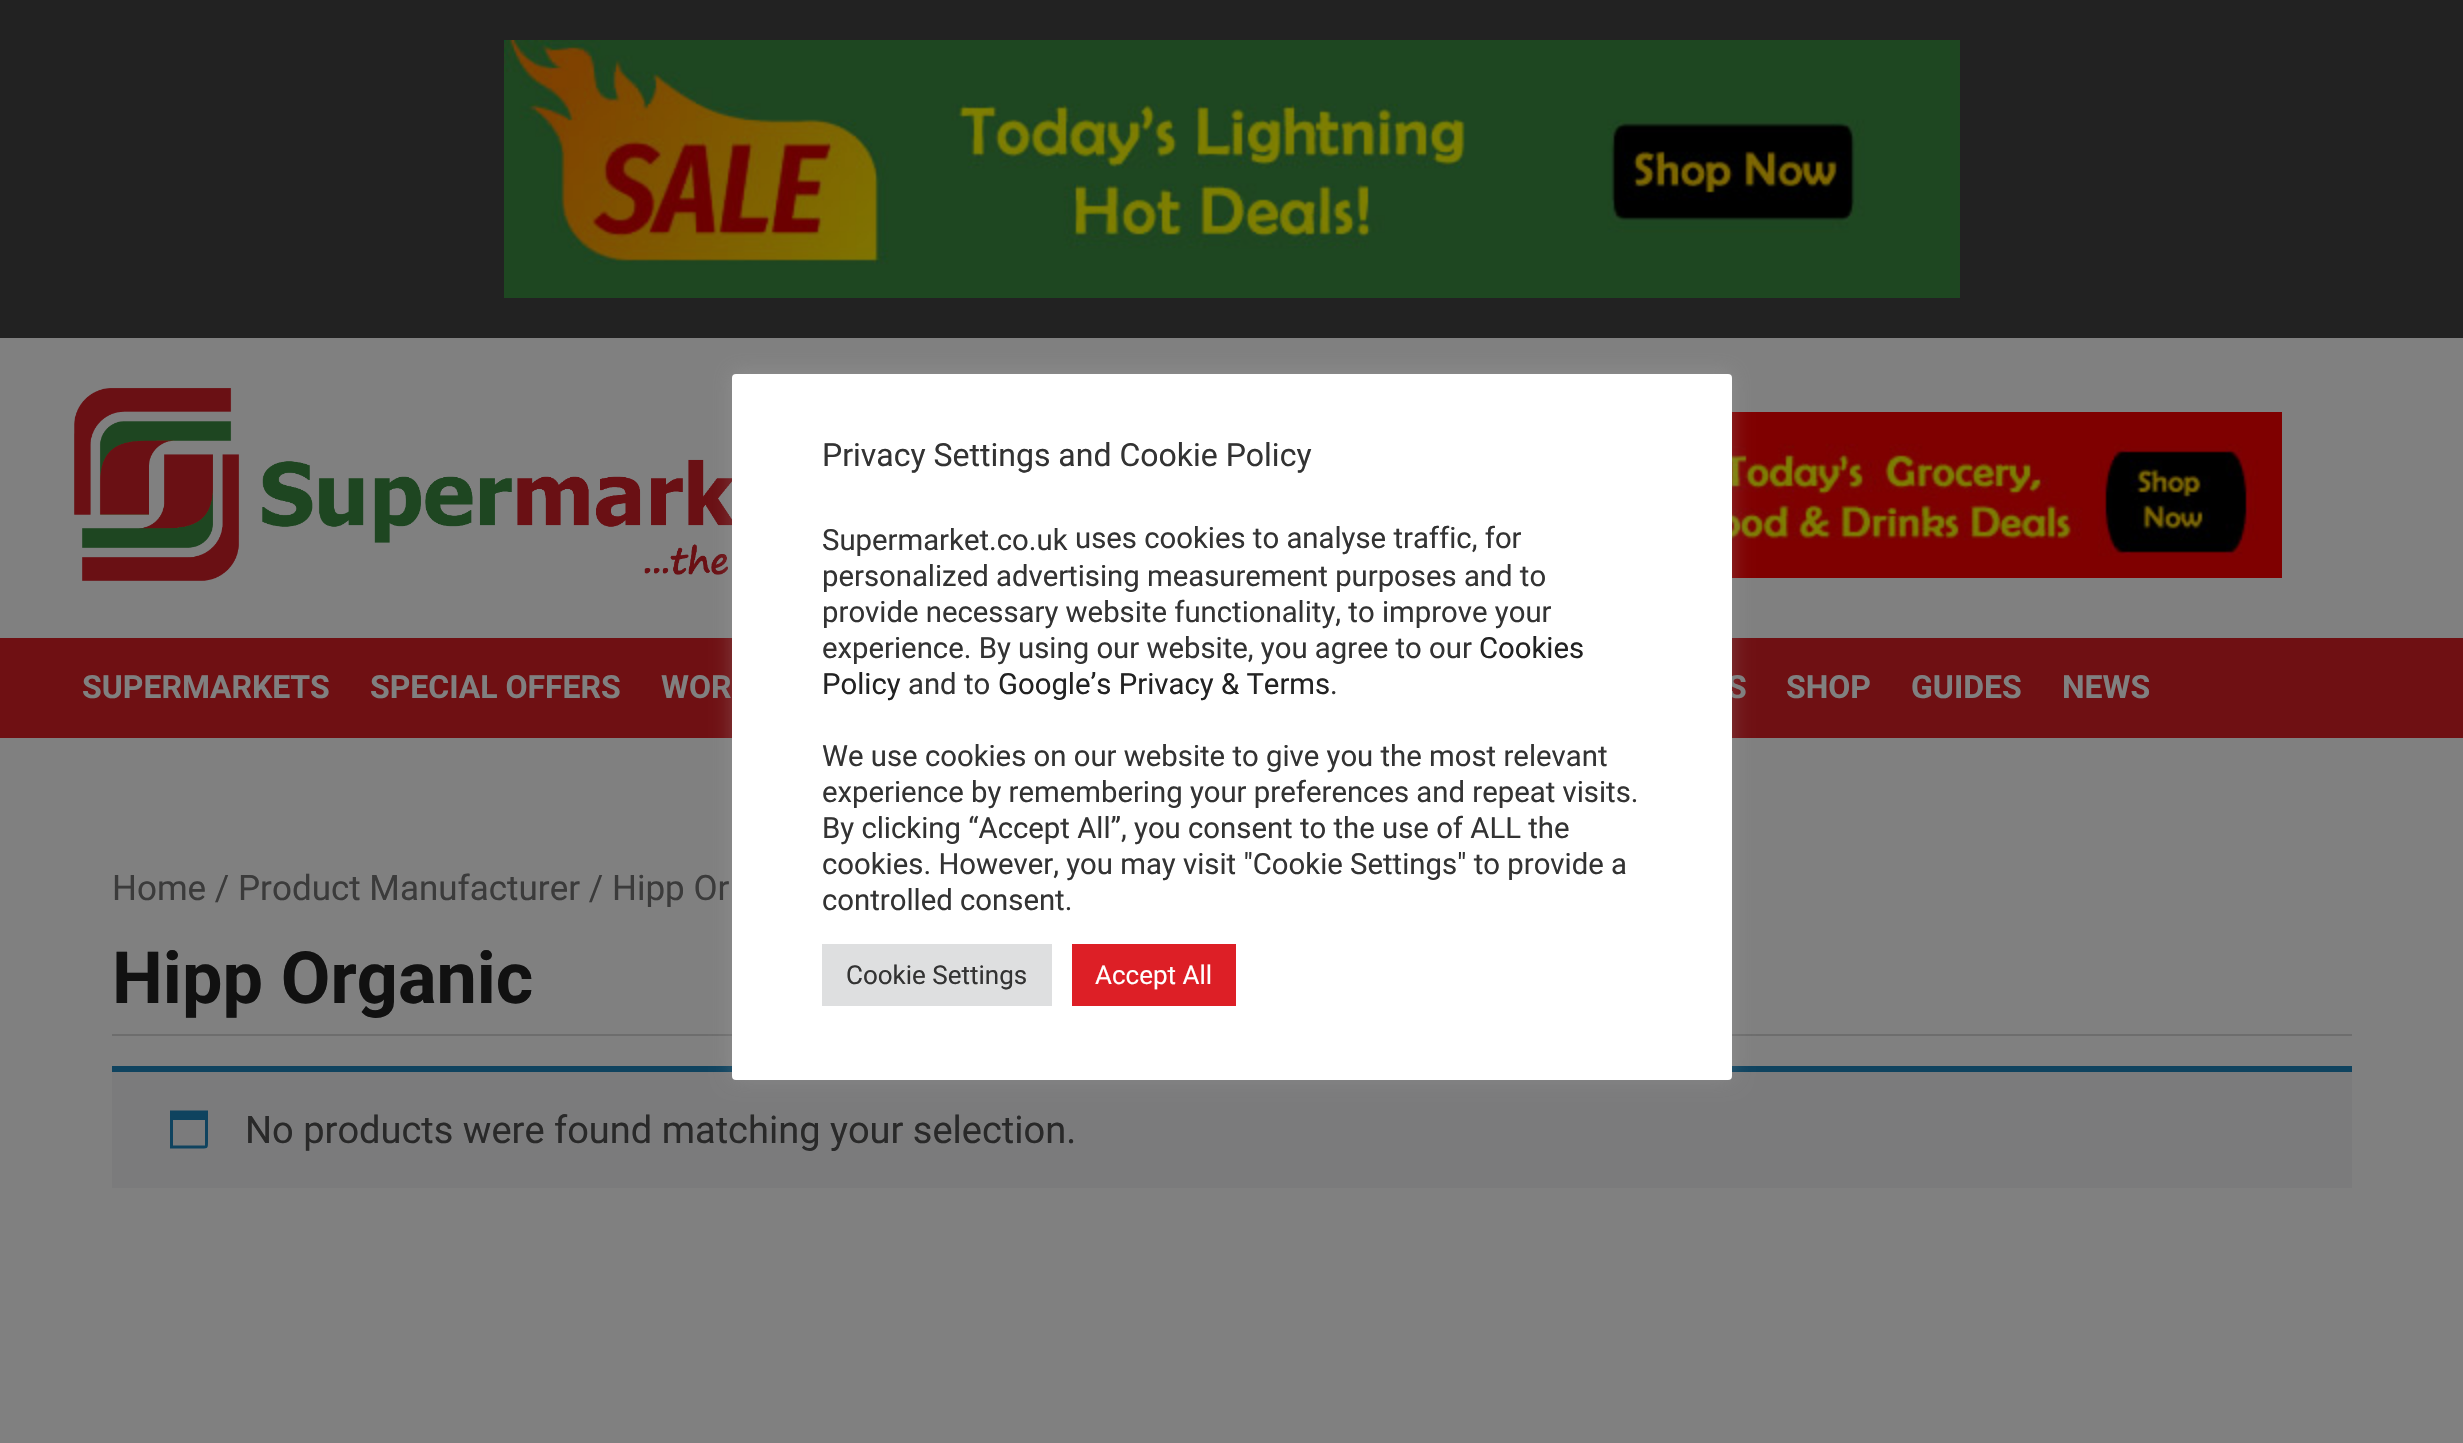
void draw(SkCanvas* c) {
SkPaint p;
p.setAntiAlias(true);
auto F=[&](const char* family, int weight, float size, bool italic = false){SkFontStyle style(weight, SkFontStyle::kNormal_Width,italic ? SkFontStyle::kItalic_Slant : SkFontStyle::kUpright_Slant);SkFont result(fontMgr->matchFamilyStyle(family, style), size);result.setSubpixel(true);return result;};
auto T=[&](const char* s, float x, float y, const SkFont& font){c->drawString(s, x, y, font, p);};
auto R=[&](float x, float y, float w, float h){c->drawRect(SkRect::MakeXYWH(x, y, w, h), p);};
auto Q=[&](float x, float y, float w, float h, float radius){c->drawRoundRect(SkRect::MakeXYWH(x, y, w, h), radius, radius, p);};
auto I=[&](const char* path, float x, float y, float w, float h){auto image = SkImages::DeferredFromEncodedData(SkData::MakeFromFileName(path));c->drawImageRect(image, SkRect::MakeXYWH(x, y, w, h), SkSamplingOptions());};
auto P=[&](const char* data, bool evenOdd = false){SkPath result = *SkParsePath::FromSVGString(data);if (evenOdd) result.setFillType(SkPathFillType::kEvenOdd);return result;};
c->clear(0xff808080);
I("2.png",74,388,658,193);
I("3.png",1732,412,550,166);
p.setColor(0xff6f1013);
R(0,638,2463,100);
p.setColor(0xff6d6d6d);
R(112,1034,2240,2);
p.setColor(0xff7b7b7c);
R(112,1072,2240,116);
p.setColor(0xff0f435f);
R(112,1066,2240,6);
p.setColor(0x4dacabab);
p.setMaskFilter(SkMaskFilter::MakeBlur(kNormal_SkBlurStyle, 10));
c->drawRoundRect(SkRect::MakeXYWH(732,372,1000,706),4,4,p);
p.setMaskFilter(nullptr);
auto f1 = F("Roboto",700,32);
p.setColor(0xff808080);
T("S",1727,698,f1);
p.setColor(0xffffffff);
Q(732,374,1000,706,4);
auto f2 = F("Roboto",400,32);
p.setColor(0xff333333);
T("Privacy Settings and Cookie Policy",822,466,f2);
auto f3 = F("Roboto",400,29.3);
T("Supermarket.co.uk",822,550,f3);
T("uses cookies to analyse traffic, for",1075,548,f3);
T("personalized advertising measurement purposes and to",822,586,f3);
T("provide necessary website functionality, to improve your",822,622,f3);
T("experience. By using our website, you agree to our",822,658,f3);
p.setColor(0xff222222);
T("Cookies",1479,658,f3);
T("Policy",822,694,f3);
p.setColor(0xff333333);
T("and to",908,694,f3);
p.setColor(0xff222222);
T("Google’s Privacy & Terms",998,694,f3);
p.setColor(0xff333333);
T(".",1330,694,f3);
T("We use cookies on our website to give you the most relevant",822,766,f3);
T("experience by remembering your preferences and repeat visits.",822,802,f3);
T("By clicking “Accept All”, you consent to the use of ALL the",822,838,f3);
T("cookies. However, you may visit \"Cookie Settings\" to provide a",822,874,f3);
T("controlled consent.",822,910,f3);
p.setColor(0xffdedfe0);
R(822,944,230,62);
auto f4 = F("Roboto",400,26);
p.setColor(0xff333333);
T("Cookie Settings",846,984,f4);
p.setColor(0xffdd1f26);
R(1072,944,164,62);
p.setColor(0xffffffff);
T("Accept All",1095,984,f4);
p.setColor(0xff222222);
R(0,0,2463,338);
I("1.png",504,40,1456,258);
p.setColor(0xff808080);
T("SUPERMARKETS",82,698,f1);
T("SPECIAL OFFERS",370,698,f1);
T("WOR",661,698,f1);
T("SHOP",1786,698,f1);
T("GUIDES",1911,698,f1);
T("NEWS",2062,698,f1);
auto f5 = F("Roboto",400,35);
p.setColor(0xff3b3b3b);
T("Home / Product Manufacturer / Hipp Or",112,900,f5);
auto f6 = F("Roboto",700,72);
p.setColor(0xff111111);
T("Hipp Organic",112,1003,f6);
p.setColor(0xff0f435f);
c->drawPath(P("M205 1120h-32v25.5h32zm3-9.5v29c0 9.5 .5 9-8.5 9h-29.5v-38z"),p);
auto f7 = F("Roboto",400,38);
p.setColor(0xff292929);
T("No products were found matching your selection.",245,1143,f7);
}
